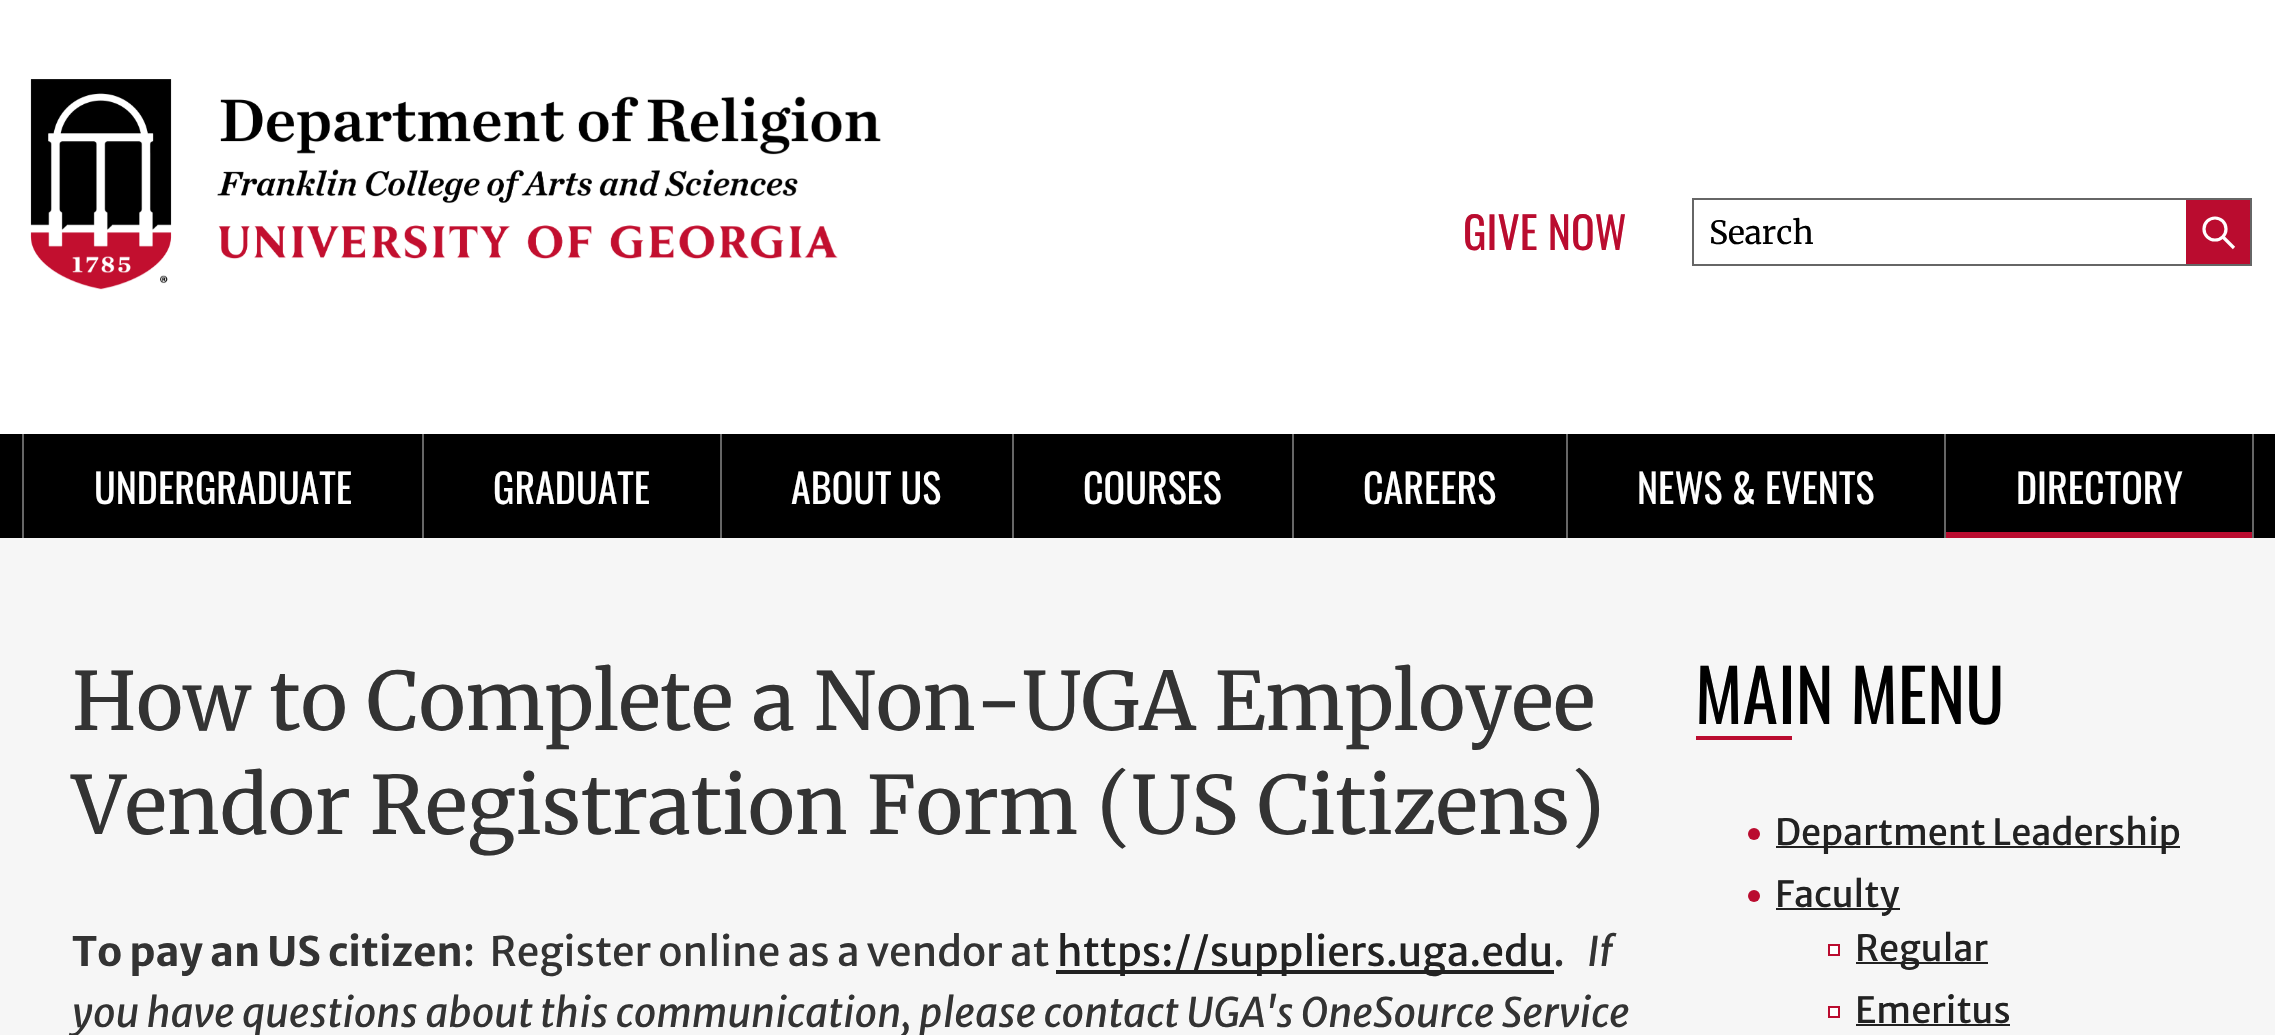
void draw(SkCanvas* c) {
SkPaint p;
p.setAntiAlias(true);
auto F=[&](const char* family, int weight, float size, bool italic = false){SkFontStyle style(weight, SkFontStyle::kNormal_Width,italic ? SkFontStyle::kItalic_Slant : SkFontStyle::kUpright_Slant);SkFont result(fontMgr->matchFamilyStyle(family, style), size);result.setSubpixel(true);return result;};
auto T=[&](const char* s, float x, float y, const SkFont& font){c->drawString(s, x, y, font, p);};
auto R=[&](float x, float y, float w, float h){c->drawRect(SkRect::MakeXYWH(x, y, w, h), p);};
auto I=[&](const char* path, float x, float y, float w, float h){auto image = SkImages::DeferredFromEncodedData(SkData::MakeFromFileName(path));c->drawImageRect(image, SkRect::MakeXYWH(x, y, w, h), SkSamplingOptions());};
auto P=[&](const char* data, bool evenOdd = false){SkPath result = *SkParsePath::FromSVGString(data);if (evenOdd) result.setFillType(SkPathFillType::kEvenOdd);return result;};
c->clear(0xffffffff);
I("1.png",30,79,851,211);
auto f1 = F("Oswald",400,44);
p.setColor(0xffba0c2f);
T("GIVE NOW",1463,250,f1);
p.setStroke(true);
p.setStrokeWidth(2);
p.setColor(0xff666666);
c->drawRect(SkRect::MakeXYWH(1693,199,558,66),p);
auto f2 = F("Merriweather",300,32);
p.setStroke(false);
p.setColor(0xff000000);
T("Search",1709,244,f2);
p.setColor(0xffba0c2f);
R(2186,200,64,64);
p.setStroke(true);
p.setStrokeWidth(3.2);
p.setColor(0xffffffff);
c->drawCircle(2215,229,11,p);
c->drawPath(P("M2223 237l11 11"),p);
p.setStroke(false);
p.setColor(0xff000000);
R(0,434,2275,104);
p.setColor(0xff666666);
R(22,434,2,104);
R(2252,434,2,104);
auto f3 = F("Oswald",400,40);
p.setColor(0xffffffff);
T("UNDERGRADUATE",94,504,f3);
p.setColor(0xff666666);
R(422,434,2,104);
p.setColor(0xffffffff);
T("GRADUATE",493,504,f3);
p.setColor(0xff666666);
R(720,434,2,104);
p.setColor(0xffffffff);
T("ABOUT US",791,504,f3);
p.setColor(0xff666666);
R(1012,434,2,104);
p.setColor(0xffffffff);
T("COURSES",1083,504,f3);
p.setColor(0xff666666);
R(1292,434,2,104);
p.setColor(0xffffffff);
T("CAREERS",1363,504,f3);
p.setColor(0xff666666);
R(1566,434,2,104);
p.setColor(0xffffffff);
T("NEWS & EVENTS",1637,504,f3);
p.setColor(0xff666666);
R(1944,434,2,104);
p.setColor(0xffba0c2f);
R(1946,532,306,6);
p.setColor(0xffffffff);
T("DIRECTORY",2016,504,f3);
p.setColor(0xfff6f6f6);
R(0,538,2275,497);
auto f4 = F("Merriweather",300,80);
p.setColor(0xff333333);
T("How to Complete a Non-UGA Employee",72,730,f4);
T("Vendor Registration Form (US Citizens)",72,834,f4);
auto f5 = F("Merriweather Sans",700,40.5);
T("To pay an US citizen",72,966,f5);
auto f6 = F("Merriweather Sans",400,40.5);
T(":  Register online as a vendor at",463,966,f6);
p.setColor(0xff222222);
R(1056,970,498,4);
T("https://suppliers.uga.edu",1057,966,f6);
p.setColor(0xff333333);
T(".",1553,966,f6);
auto f7 = F("Merriweather Sans",400,40.5,true);
T("If",1587,966,f7);
T("you have questions about this communication, please contact UGA's OneSource Service",72,1027,f7);
auto f8 = F("Oswald",400,72);
p.setColor(0xff000000);
T("MAIN MENU",1695,724,f8);
p.setColor(0xffba0c2f);
R(1696,736,96,4);
c->drawCircle(1754,834,6,p);
p.setColor(0xff222222);
R(1776,846,404,2);
auto f9 = F("Merriweather Sans",400,36);
T("Department Leadership",1775,845,f9);
p.setColor(0xffba0c2f);
c->drawCircle(1754,896,6,p);
p.setColor(0xff222222);
R(1776,908,124,2);
T("Faculty",1775,907,f9);
p.setColor(0xffffffff);
c->drawRect(SkRect::MakeXYWH(1829,945,10,10),p);
p.setStroke(true);
p.setStrokeWidth(2);
p.setColor(0xffba0c2f);
c->drawRect(SkRect::MakeXYWH(1829,945,10,10),p);
p.setStroke(false);
p.setColor(0xff222222);
R(1856,962,132,2);
T("Regular",1855,961,f9);
p.setColor(0xffffffff);
c->drawRect(SkRect::MakeXYWH(1829,1007,10,10),p);
p.setStroke(true);
p.setColor(0xffba0c2f);
c->drawRect(SkRect::MakeXYWH(1829,1007,10,10),p);
p.setStroke(false);
p.setColor(0xff222222);
T("Emeritus",1855,1023,f9);
R(1856,1024,154,2);
}
